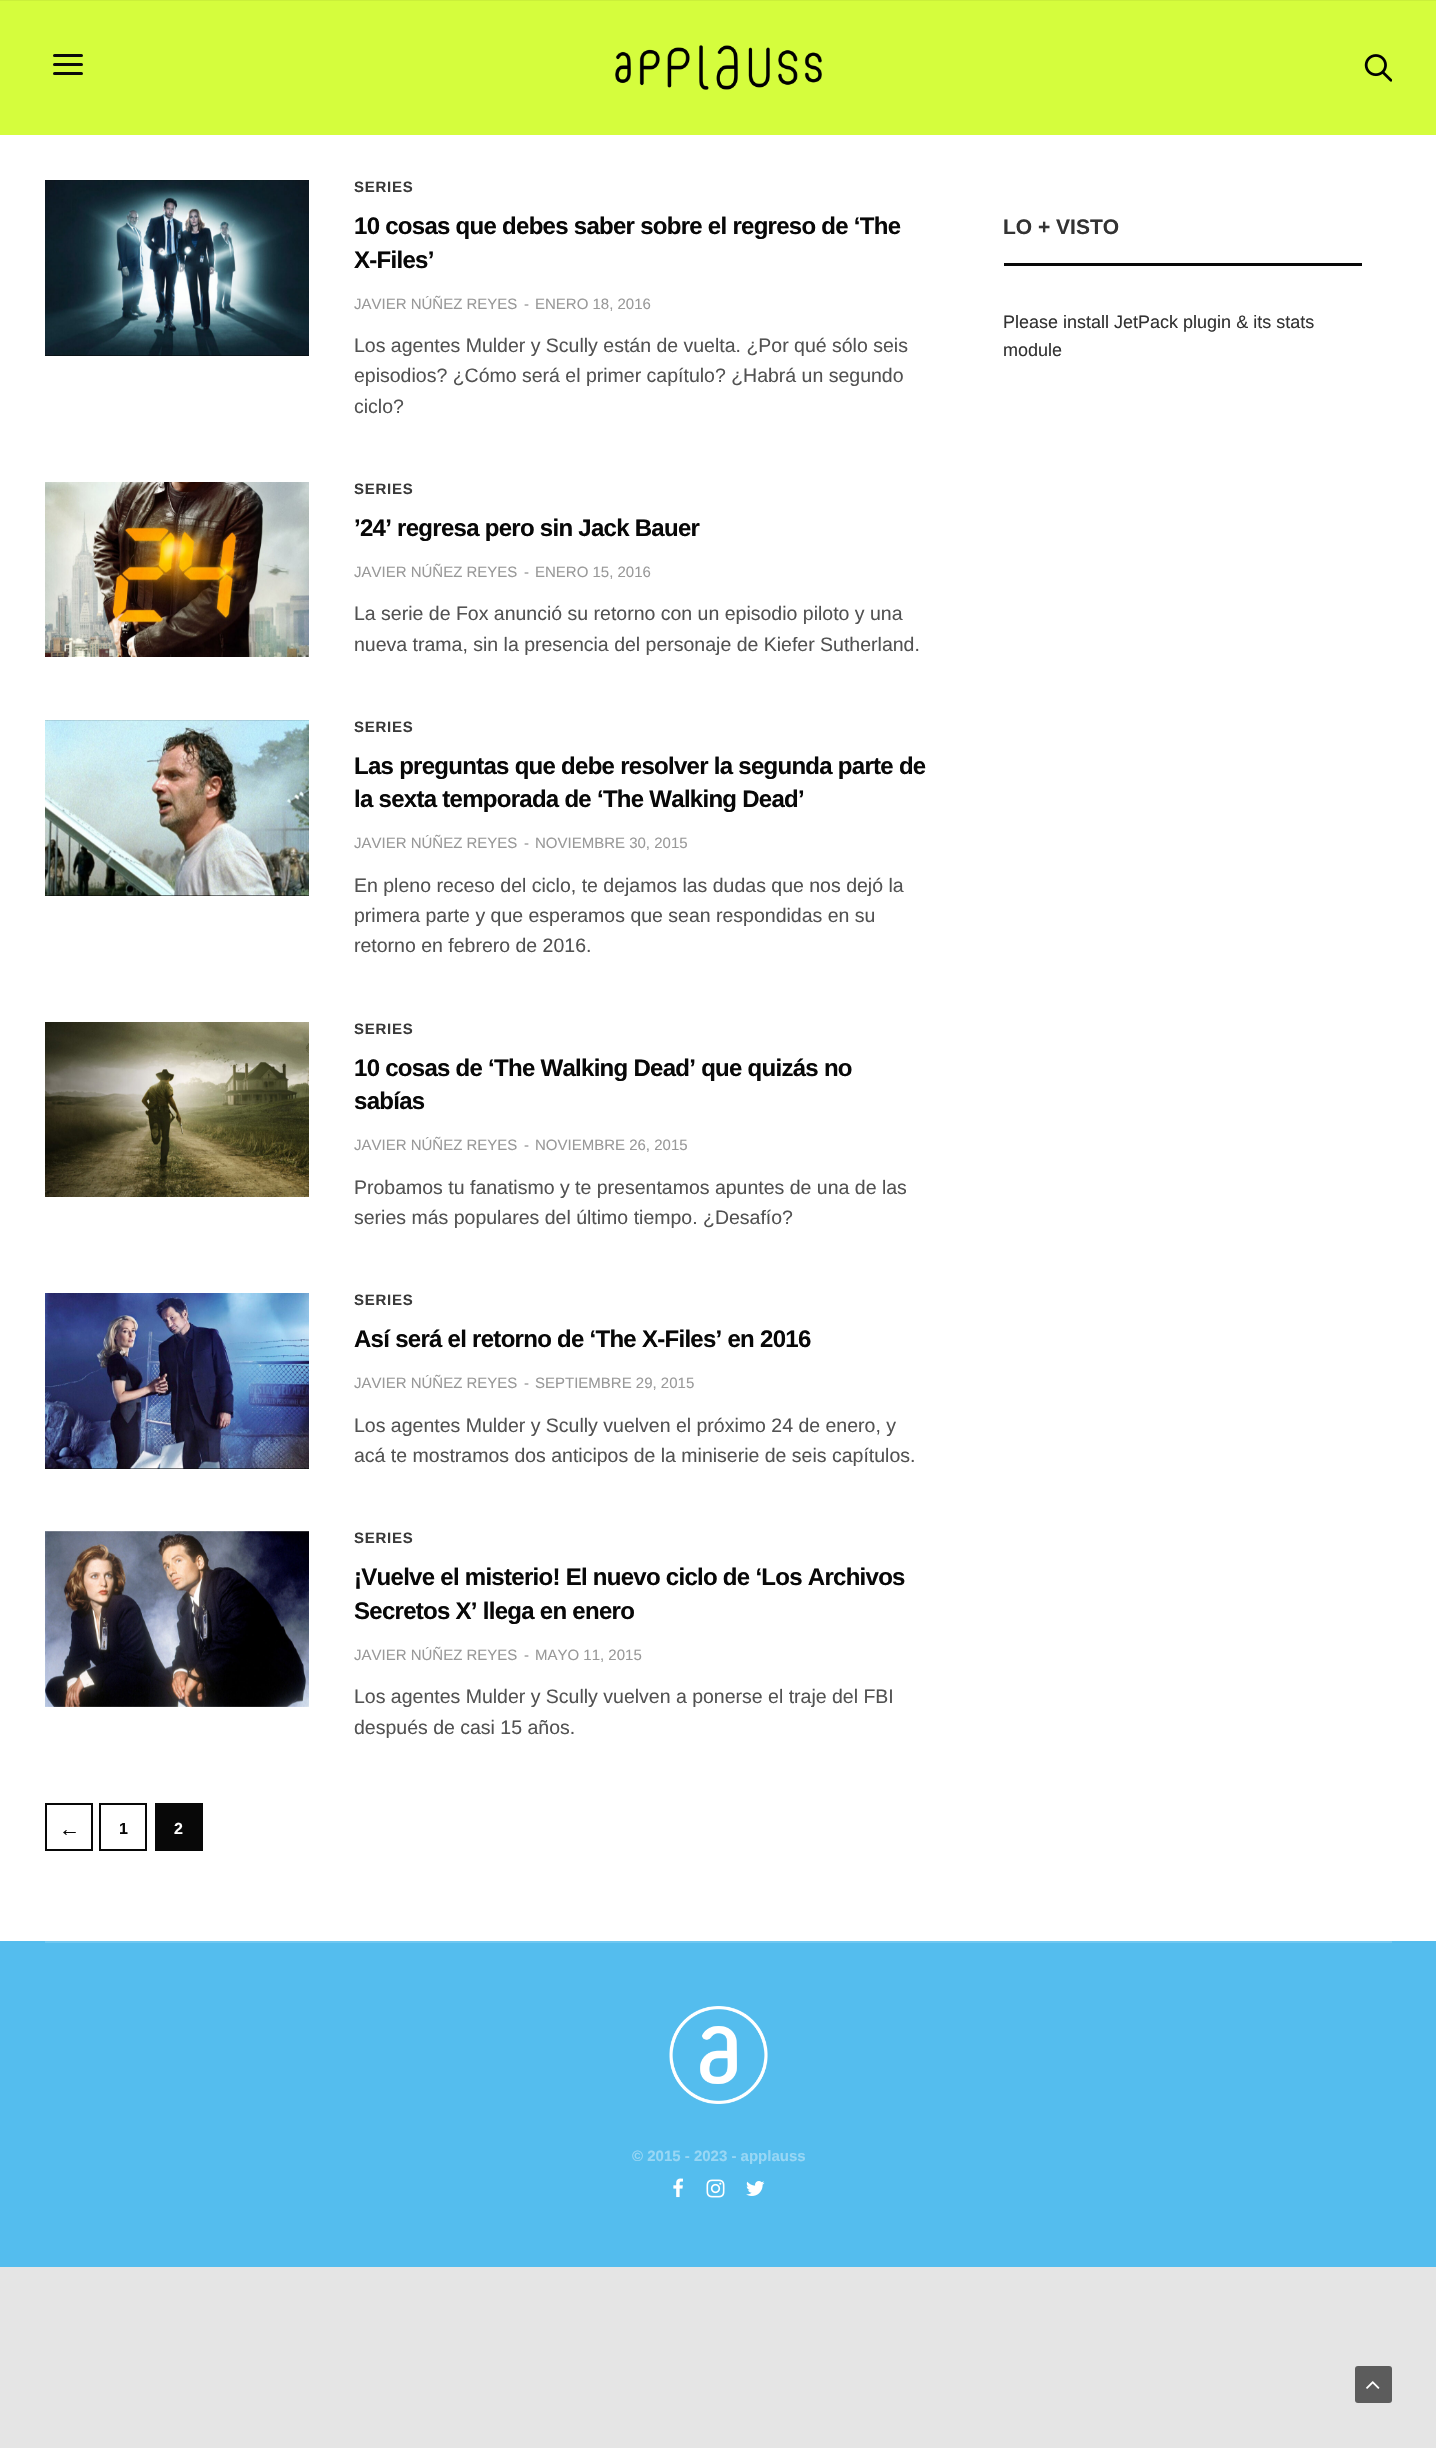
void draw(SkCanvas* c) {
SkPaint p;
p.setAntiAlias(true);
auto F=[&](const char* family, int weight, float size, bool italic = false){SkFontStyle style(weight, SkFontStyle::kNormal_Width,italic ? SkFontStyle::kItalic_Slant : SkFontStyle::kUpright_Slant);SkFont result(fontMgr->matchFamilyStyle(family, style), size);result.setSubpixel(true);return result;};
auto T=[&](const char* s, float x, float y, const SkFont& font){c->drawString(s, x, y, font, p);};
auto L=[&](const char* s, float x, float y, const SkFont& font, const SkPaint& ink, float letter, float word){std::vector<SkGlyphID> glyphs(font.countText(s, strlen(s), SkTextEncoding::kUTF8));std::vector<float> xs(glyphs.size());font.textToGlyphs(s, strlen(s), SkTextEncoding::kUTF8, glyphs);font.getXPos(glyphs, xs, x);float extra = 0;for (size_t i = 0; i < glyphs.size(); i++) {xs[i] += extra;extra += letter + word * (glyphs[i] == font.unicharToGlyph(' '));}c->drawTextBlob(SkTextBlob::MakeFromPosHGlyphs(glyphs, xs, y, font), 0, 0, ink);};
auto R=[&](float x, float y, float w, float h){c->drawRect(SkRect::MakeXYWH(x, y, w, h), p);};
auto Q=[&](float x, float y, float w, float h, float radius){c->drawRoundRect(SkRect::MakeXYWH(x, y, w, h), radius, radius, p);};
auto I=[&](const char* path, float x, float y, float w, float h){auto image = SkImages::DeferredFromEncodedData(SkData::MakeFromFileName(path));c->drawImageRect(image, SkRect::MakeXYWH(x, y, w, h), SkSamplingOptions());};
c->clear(0xffe5e5e5);
p.setColor(0xffcaf03a);
R(0,0,1436,1);
p.setColor(0xffd5fd3d);
R(0,1,1436,134);
p.setColor(0xff0a0a0a);
Q(53,54,30,3,1.5);
Q(53,63,30,3,1.5);
Q(53,72,30,3,1.5);
I("1.png",615,45,207,45);
I("2.png",1364,54,28,28);
p.setColor(0xffffffff);
R(0,135,1436,1806);
p.setColor(0xff080808);
R(45,180,264,176);
I("3.png",45,180,264,176);
auto f1 = F("Liberation Sans",700,15);
p.setColor(0xff393939);
L("SERIES",354,192,f1,p,.75,0);
auto f2 = F("Liberation Sans",700,24);
p.setColor(0xff080808);
L("10 cosas que debes saber sobre el regreso de ‘The",354,234,f2,p,-.72,0);
L("X-Files’",354,268,f2,p,-.72,0);
auto f3 = F("Liberation Sans",400,15);
p.setColor(0xff999999);
T("JAVIER NÚÑEZ REYES",354,309,f3);
T("-",524,309,f3);
T("ENERO 18, 2016",535,309,f3);
auto f4 = F("Liberation Sans",400,19.5);
p.setColor(0xff525252);
T("Los agentes Mulder y Scully están de vuelta. ¿Por qué sólo seis",354,352,f4);
T("episodios? ¿Cómo será el primer capítulo? ¿Habrá un segundo",354,382,f4);
T("ciclo?",354,413,f4);
I("4.png",45,482,264,175);
p.setColor(0xff393939);
L("SERIES",354,494,f1,p,.75,0);
p.setColor(0xff080808);
L("’24’ regresa pero sin Jack Bauer",354,536,f2,p,-.72,0);
p.setColor(0xff999999);
T("JAVIER NÚÑEZ REYES",354,577,f3);
T("-",524,577,f3);
T("ENERO 15, 2016",535,577,f3);
p.setColor(0xff525252);
T("La serie de Fox anunció su retorno con un episodio piloto y una",354,620,f4);
T("nueva trama, sin la presencia del personaje de Kiefer Sutherland.",354,651,f4);
p.setColor(0xff080808);
R(45,720,264,176);
I("5.png",45,720,264,176);
p.setColor(0xff393939);
L("SERIES",354,732,f1,p,.75,0);
p.setColor(0xff080808);
L("Las preguntas que debe resolver la segunda parte de",354,774,f2,p,-.72,0);
L("la sexta temporada de ‘The Walking Dead’",354,807,f2,p,-.72,0);
p.setColor(0xff999999);
T("JAVIER NÚÑEZ REYES",354,848,f3);
T("-",524,848,f3);
T("NOVIEMBRE 30, 2015",535,848,f3);
p.setColor(0xff525252);
T("En pleno receso del ciclo, te dejamos las dudas que nos dejó la",354,892,f4);
T("primera parte y que esperamos que sean respondidas en su",354,922,f4);
T("retorno en febrero de 2016.",354,952,f4);
I("6.png",45,1022,264,175);
p.setColor(0xff393939);
L("SERIES",354,1034,f1,p,.75,0);
p.setColor(0xff080808);
L("10 cosas de ‘The Walking Dead’ que quizás no",354,1076,f2,p,-.72,0);
L("sabías",354,1109,f2,p,-.72,0);
p.setColor(0xff999999);
T("JAVIER NÚÑEZ REYES",354,1150,f3);
T("-",524,1150,f3);
T("NOVIEMBRE 26, 2015",535,1150,f3);
p.setColor(0xff525252);
T("Probamos tu fanatismo y te presentamos apuntes de una de las",354,1194,f4);
T("series más populares del último tiempo. ¿Desafío?",354,1224,f4);
p.setColor(0xff080808);
R(45,1468,264,1);
I("7.png",45,1293,264,176);
p.setColor(0xff393939);
L("SERIES",354,1305,f1,p,.75,0);
p.setColor(0xff080808);
L("Así será el retorno de ‘The X-Files’ en 2016",354,1347,f2,p,-.72,0);
p.setColor(0xff999999);
T("JAVIER NÚÑEZ REYES",354,1388,f3);
T("-",524,1388,f3);
T("SEPTIEMBRE 29, 2015",535,1388,f3);
p.setColor(0xff525252);
T("Los agentes Mulder y Scully vuelven el próximo 24 de enero, y",354,1432,f4);
T("acá te mostramos dos anticipos de la miniserie de seis capítulos.",354,1462,f4);
I("8.png",45,1531,264,176);
p.setColor(0xff393939);
L("SERIES",354,1543,f1,p,.75,0);
p.setColor(0xff080808);
L("¡Vuelve el misterio! El nuevo ciclo de ‘Los Archivos",354,1585,f2,p,-.72,0);
L("Secretos X’ llega en enero",354,1619,f2,p,-.72,0);
p.setColor(0xff999999);
T("JAVIER NÚÑEZ REYES",354,1660,f3);
T("-",524,1660,f3);
T("MAYO 11, 2015",535,1660,f3);
p.setColor(0xff525252);
T("Los agentes Mulder y Scully vuelven a ponerse el traje del FBI",354,1703,f4);
T("después de casi 15 años.",354,1734,f4);
p.setStroke(true);
p.setStrokeWidth(2);
p.setColor(0xff080808);
c->drawRect(SkRect::MakeXYWH(46,1804,46,46),p);
auto f5 = F("Liberation Sans",700,21);
p.setStroke(false);
T("←",59,1836,f5);
p.setStroke(true);
c->drawRect(SkRect::MakeXYWH(100,1804,46,46),p);
auto f6 = F("Liberation Sans",700,16);
p.setStroke(false);
T("1",119,1834,f6);
R(155,1803,48,48);
p.setColor(0xffffffff);
T("2",174,1834,f6);
p.setColor(0xff080808);
R(1004,263,358,3);
p.setColor(0xff333333);
T("LO + VISTO",1003,234,f5);
auto f7 = F("Liberation Sans",400,18);
T("Please install JetPack plugin & its stats",1003,328,f7);
T("module",1003,356,f7);
p.setColor(0xff54bdee);
R(0,1941,1436,326);
p.setColor(0xff6ec7f1);
R(45,1941,1347,2);
I("9.png",669,2006,99,98);
p.setColor(0xff98d7f5);
T("© 2015 - 2023 - applauss",632,2161,f1);
I("10.png",673,2178,10,20);
I("11.png",706,2179,19,19);
I("12.png",746,2181,19,15);
p.setColor(0xff5c5c5c);
Q(1355,2366,37,37,3);
I("13.png",1366,2381,14,8);
}
